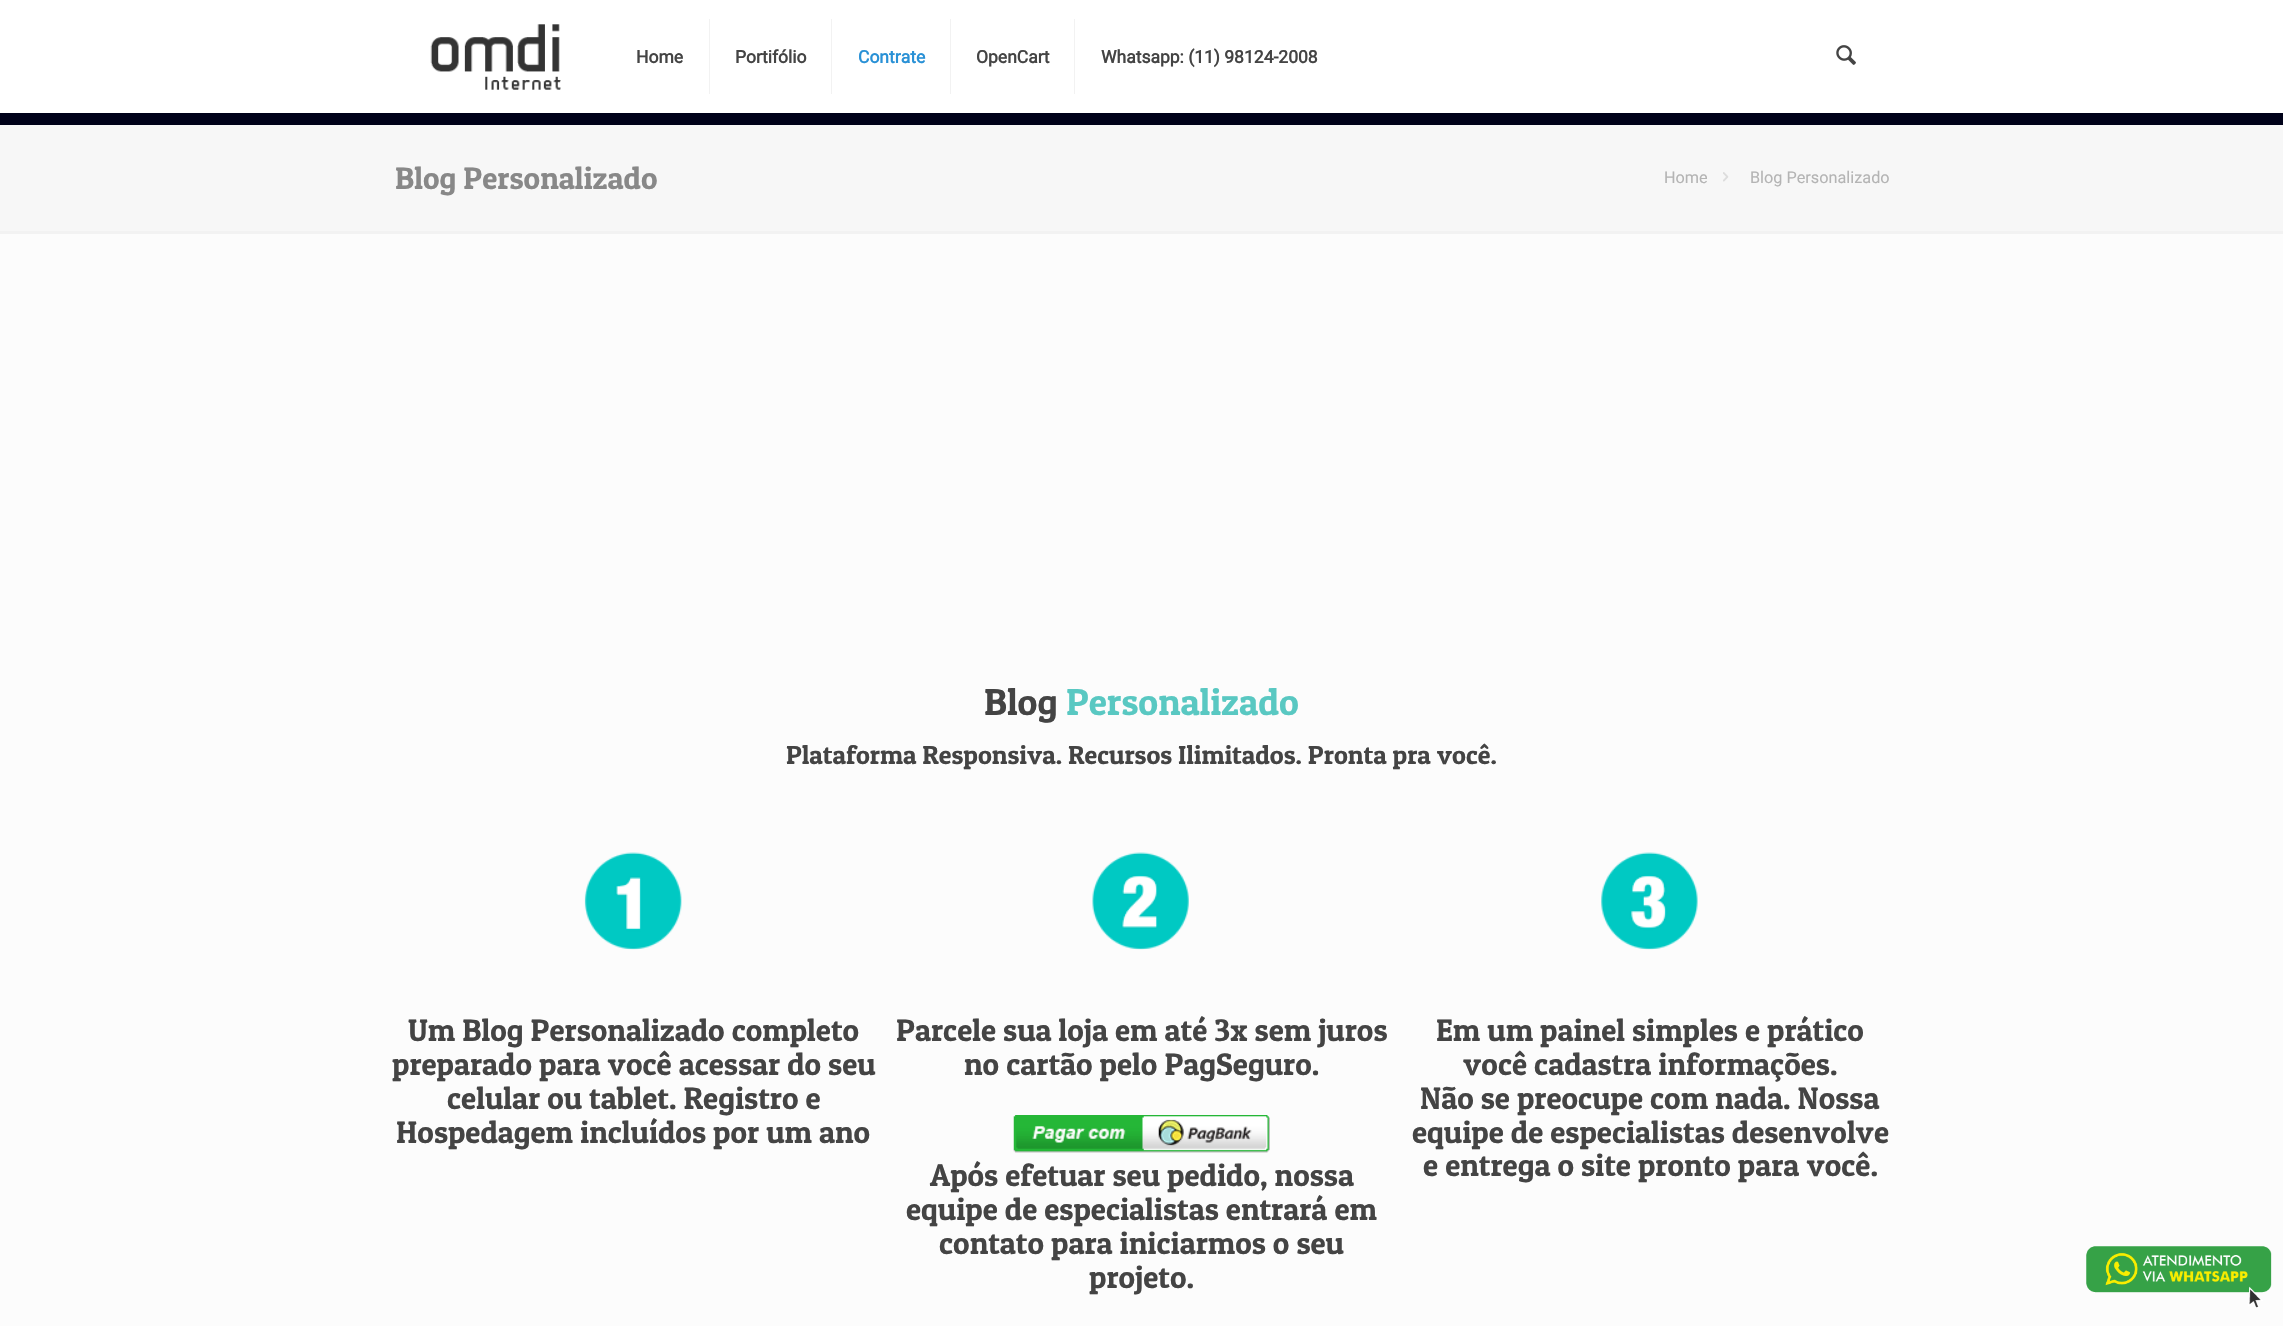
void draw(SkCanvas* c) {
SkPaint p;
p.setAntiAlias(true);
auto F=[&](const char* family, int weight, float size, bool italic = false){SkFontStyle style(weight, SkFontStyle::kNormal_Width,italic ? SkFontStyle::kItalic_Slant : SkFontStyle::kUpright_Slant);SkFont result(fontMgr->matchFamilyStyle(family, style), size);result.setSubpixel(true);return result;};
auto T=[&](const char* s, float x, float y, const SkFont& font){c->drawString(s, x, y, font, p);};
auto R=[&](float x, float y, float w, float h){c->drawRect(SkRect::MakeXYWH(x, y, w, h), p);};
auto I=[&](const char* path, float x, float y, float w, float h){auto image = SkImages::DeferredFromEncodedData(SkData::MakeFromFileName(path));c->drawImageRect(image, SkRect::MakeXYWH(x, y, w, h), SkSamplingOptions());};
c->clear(0xfffcfcfc);
p.setColor(0xff000119);
R(0,113,2283,12);
p.setColor(0xffffffff);
R(0,0,2283,113);
I("1.png",430,24,131,66);
p.setColor(0xfff2f2f2);
R(709,19,1,75);
auto f1 = F("Roboto",700,17.5);
p.setColor(0xff444444);
T("Home",636,63,f1);
p.setColor(0xfff2f2f2);
R(831,19,1,75);
p.setColor(0xff444444);
T("Portifólio",735,63,f1);
p.setColor(0xfff2f2f2);
R(950,19,1,75);
p.setColor(0xff2991d6);
T("Contrate",858,63,f1);
p.setColor(0xfff2f2f2);
R(1074,19,1,75);
p.setColor(0xff444444);
T("OpenCart",976,63,f1);
T("Whatsapp: (11) 98124-2008",1101,63,f1);
I("2.png",1836,45,20,20);
p.setColor(0xfff7f7f7);
R(0,125,2283,106);
auto f2 = F("Patua One",400,31.25);
p.setColor(0xff888888);
T("Blog Personalizado",395,189,f2);
auto f3 = F("Roboto",400,16.25);
p.setColor(0xffb4b4b4);
T("Home",1664,183,f3);
I("3.png",1723,172,6,10);
T("Blog Personalizado",1750,183,f3);
p.setColor(0xfff2f2f2);
R(0,231,2283,3);
auto f4 = F("Patua One",400,37.5);
p.setColor(0xff444444);
T("Blog",984,715,f4);
p.setColor(0xff59c8c2);
T("Personalizado",1066,715,f4);
auto f5 = F("Patua One",400,26.25);
p.setColor(0xff444444);
T("Plataforma Responsiva. Recursos Ilimitados. Pronta pra você.",786,764,f5);
I("4.png",584,852,98,98);
T("Um Blog Personalizado completo",408,1041,f2);
T("preparado para você acessar do seu",392,1075,f2);
T("celular ou tablet. Registro e",447,1109,f2);
T("Hospedagem incluídos por um ano",396,1143,f2);
I("5.png",1092,852,97,98);
T("Parcele sua loja em até 3x sem juros",896,1041,f2);
T("no cartão pelo PagSeguro.",964,1075,f2);
I("6.png",1013,1115,257,38);
T("Após efetuar seu pedido, nossa",930,1186,f2);
T("equipe de especialistas entrará em",906,1220,f2);
T("contato para iniciarmos o seu",939,1254,f2);
T("projeto.",1089,1288,f2);
I("7.png",1601,852,97,98);
T("Em um painel simples e prático",1436,1041,f2);
T("você cadastra informações.",1463,1075,f2);
T("Não se preocupe com nada. Nossa",1420,1109,f2);
T("equipe de especialistas desenvolve",1412,1143,f2);
T("e entrega o site pronto para você.",1423,1176,f2);
I("8.png",2086,1246,186,62);
}
